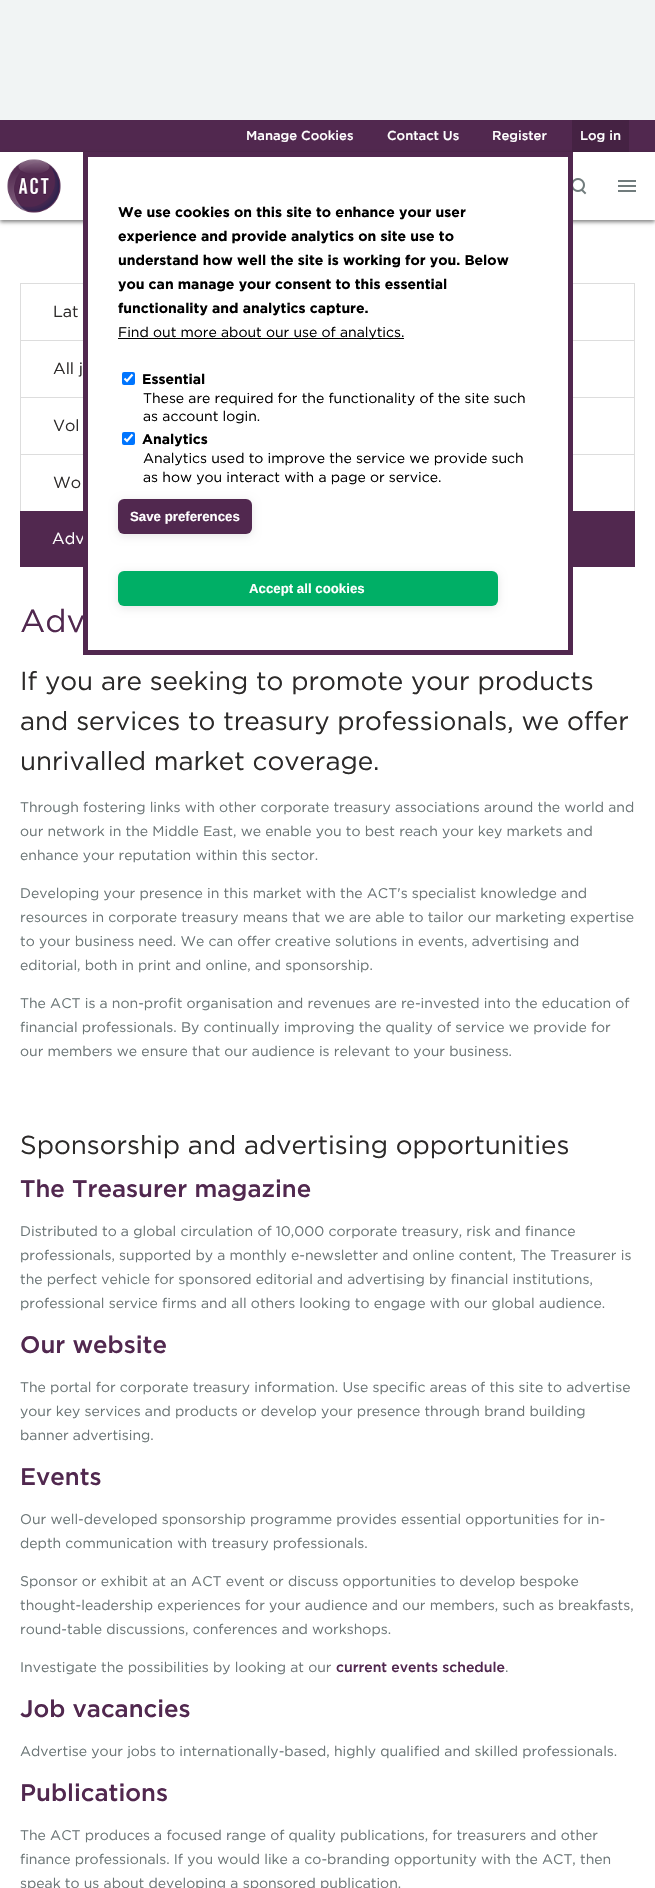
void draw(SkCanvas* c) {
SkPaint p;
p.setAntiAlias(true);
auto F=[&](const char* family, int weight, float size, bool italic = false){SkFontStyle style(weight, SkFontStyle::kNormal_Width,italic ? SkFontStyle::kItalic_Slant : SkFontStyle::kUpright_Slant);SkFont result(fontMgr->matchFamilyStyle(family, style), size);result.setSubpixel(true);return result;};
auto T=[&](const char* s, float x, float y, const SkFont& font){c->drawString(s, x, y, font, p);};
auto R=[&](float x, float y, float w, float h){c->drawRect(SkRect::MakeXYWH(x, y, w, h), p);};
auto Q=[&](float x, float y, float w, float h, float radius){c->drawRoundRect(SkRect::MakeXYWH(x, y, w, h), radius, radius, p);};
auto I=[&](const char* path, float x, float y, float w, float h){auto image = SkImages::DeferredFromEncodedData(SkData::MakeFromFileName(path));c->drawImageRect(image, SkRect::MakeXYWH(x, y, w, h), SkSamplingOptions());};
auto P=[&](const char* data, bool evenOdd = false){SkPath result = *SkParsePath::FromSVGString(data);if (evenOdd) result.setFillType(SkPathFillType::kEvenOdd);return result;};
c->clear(0xffffffff);
p.setColor(0xfff1f4f4);
R(0,0,655,120);
p.setColor(0xff51284f);
R(0,120,655,32);
auto f1 = F("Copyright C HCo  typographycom",300,13);
p.setColor(0xffffffff);
T("Manage Cookies",246,140,f1);
T("Contact Us",387,140,f1);
T("Register",492,140,f1);
c->save();
c->clipPath(P("M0 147h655v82h-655zm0 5h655v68h-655z",true),true);
p.setColor(0x80000000);
p.setMaskFilter(SkMaskFilter::MakeBlur(kNormal_SkBlurStyle, 2));
c->drawRect(SkRect::MakeXYWH(0,154,655,68),p);
p.setMaskFilter(nullptr);
c->restore();
p.setColor(0x26000000);
R(572,120,57,32);
p.setColor(0xffffffff);
T("Log in",580,140,f1);
I("1.png",7,159,54,54);
I("2.png",573,178,14,17);
I("3.png",618,180,18,12);
p.setColor(0xffdddddd);
R(20,283,615,1);
R(634,284,1,228);
R(20,340,615,1);
R(20,397,615,1);
R(20,454,615,1);
R(20,398,1,114);
p.setColor(0xff51284f);
R(20,511,615,56);
p.setColor(0xffffffff);
R(88,220,480,347);
auto f2 = F("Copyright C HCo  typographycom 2",300,16);
T("Adv",52,544,f2);
p.setStroke(true);
p.setStrokeWidth(5);
p.setColor(0xff51284f);
c->drawRect(SkRect::MakeXYWH(85.5,154.5,485,498),p);
auto f3 = F("Copyright C HCo  typographycom",400,14);
p.setStroke(false);
p.setColor(0xff000000);
T("We use cookies on this site to enhance your user",118,217,f3);
T("experience and provide analytics on site use to",118,241,f3);
T("understand how well the site is working for you. Below",118,265,f3);
T("you can manage your consent to this essential",118,289,f3);
T("functionality and analytics capture.",118,313,f3);
R(118,338,286,1);
auto f4 = F("Copyright C HCo  typographycom 2",300,14);
T("Find out more about our use of analytics.",118,337,f4);
p.setColor(0xff0075ff);
Q(122,372,13,13,2);
p.setStroke(true);
p.setStrokeWidth(2.1);
p.setColor(0xffffffff);
c->drawPath(P("M124.5 378.5l2.5 2.5l5.5-6.5"),p);
p.setStroke(false);
p.setColor(0xff000000);
T("Essential",142,384,f3);
T("These are required for the functionality of the site such",143,403,f4);
T("as account login.",143,421,f4);
p.setColor(0xff0075ff);
Q(122,432,13,13,2);
p.setStroke(true);
p.setColor(0xffffffff);
c->drawPath(P("M124.5 438.5l2.5 2.5l5.5-6.5"),p);
p.setStroke(false);
p.setColor(0xff000000);
T("Analytics",142,444,f3);
T("Analytics used to improve the service we provide such",143,463,f4);
T("as how you interact with a page or service.",143,482,f4);
p.setColor(0x1a000000);
p.setMaskFilter(SkMaskFilter::MakeBlur(kNormal_SkBlurStyle, 4));
c->drawRoundRect(SkRect::MakeXYWH(118,501,134,35),6,6,p);
p.setMaskFilter(nullptr);
p.setColor(0xff51284f);
Q(118,499,134,35,6);
auto f5 = F("Liberation Sans",700,13.25);
p.setColor(0xffffffff);
T("Save preferences",130,521,f5);
p.setColor(0x1a000000);
p.setMaskFilter(SkMaskFilter::MakeBlur(kNormal_SkBlurStyle, 4));
c->drawRoundRect(SkRect::MakeXYWH(118,573,380,35),6,6,p);
p.setMaskFilter(nullptr);
p.setColor(0xff00af66);
Q(118,571,380,35,6);
p.setColor(0xffffffff);
T("Accept all cookies",249,593,f5);
p.setColor(0xffdddddd);
R(20,284,1,57);
p.setColor(0xff2c2a29);
T("Lat",53,317,f2);
p.setColor(0xffdddddd);
R(20,341,1,57);
p.setColor(0xff2c2a29);
T("All j",53,374,f2);
T("Vol",53,431,f2);
T("Wo",53,488,f2);
auto f6 = F("Copyright C HCo  typographycom 2",300,32);
p.setColor(0xff51284f);
T("Adv",20,632,f6);
auto f7 = F("Copyright C HCo  typographycom 2",300,26);
p.setColor(0xff2c2a29);
T("If you are seeking to promote your products",20,690,f7);
T("and services to treasury professionals, we offer",20,730,f7);
T("unrivalled market coverage.",20,770,f7);
p.setColor(0xff6c7677);
T("Through fostering links with other corporate treasury associations around the world and",20,812,f4);
T("our network in the Middle East, we enable you to best reach your key markets and",20,836,f4);
T("enhance your reputation within this sector.",20,860,f4);
T("Developing your presence in this market with the ACT's specialist knowledge and",20,898,f4);
T("resources in corporate treasury means that we are able to tailor our marketing expertise",20,922,f4);
T("to your business need. We can offer creative solutions in events, advertising and",20,946,f4);
T("editorial, both in print and online, and sponsorship.",20,970,f4);
T("The ACT is a non-profit organisation and revenues are re-invested into the education of",20,1008,f4);
T("financial professionals. By continually improving the quality of service we provide for",20,1032,f4);
T("our members we ensure that our audience is relevant to your business.",20,1056,f4);
p.setColor(0xff2c2a29);
T("Sponsorship and advertising opportunities",20,1154,f7);
auto f8 = F("Copyright C HCo  typographycom",300,24);
p.setColor(0xff51284f);
T("The Treasurer magazine",20,1197,f8);
p.setColor(0xff6c7677);
T("Distributed to a global circulation of 10,000 corporate treasury, risk and finance",20,1236,f4);
T("professionals, supported by a monthly e-newsletter and online content, The Treasurer is",20,1260,f4);
T("the perfect vehicle for sponsored editorial and advertising by financial institutions,",20,1284,f4);
T("professional service firms and all others looking to engage with our global audience.",20,1308,f4);
p.setColor(0xff51284f);
T("Our website",20,1353,f8);
p.setColor(0xff6c7677);
T("The portal for corporate treasury information. Use specific areas of this site to advertise",20,1392,f4);
T("your key services and products or develop your presence through brand building",20,1416,f4);
T("banner advertising.",20,1440,f4);
p.setColor(0xff51284f);
T("Events",20,1485,f8);
p.setColor(0xff6c7677);
T("Our well-developed sponsorship programme provides essential opportunities for in-",20,1524,f4);
T("depth communication with treasury professionals.",20,1548,f4);
T("Sponsor or exhibit at an ACT event or discuss opportunities to develop bespoke",20,1586,f4);
T("thought-leadership experiences for your audience and our members, such as breakfasts,",20,1610,f4);
T("round-table discussions, conferences and workshops.",20,1634,f4);
T("Investigate the possibilities by looking at our",20,1672,f4);
auto f9 = F("Copyright C HCo  typographycom",300,14);
p.setColor(0xff51284f);
T("current events schedule",336,1672,f9);
p.setColor(0xff6c7677);
T(".",505,1672,f4);
p.setColor(0xff51284f);
T("Job vacancies",20,1717,f8);
p.setColor(0xff6c7677);
T("Advertise your jobs to internationally-based, highly qualified and skilled professionals.",20,1756,f4);
p.setColor(0xff51284f);
T("Publications",20,1801,f8);
p.setColor(0xff6c7677);
T("The ACT produces a focused range of quality publications, for treasurers and other",20,1840,f4);
T("finance professionals. If you would like a co-branding opportunity with the ACT, then",20,1864,f4);
T("speak to us about developing a sponsored publication.",20,1888,f4);
}
